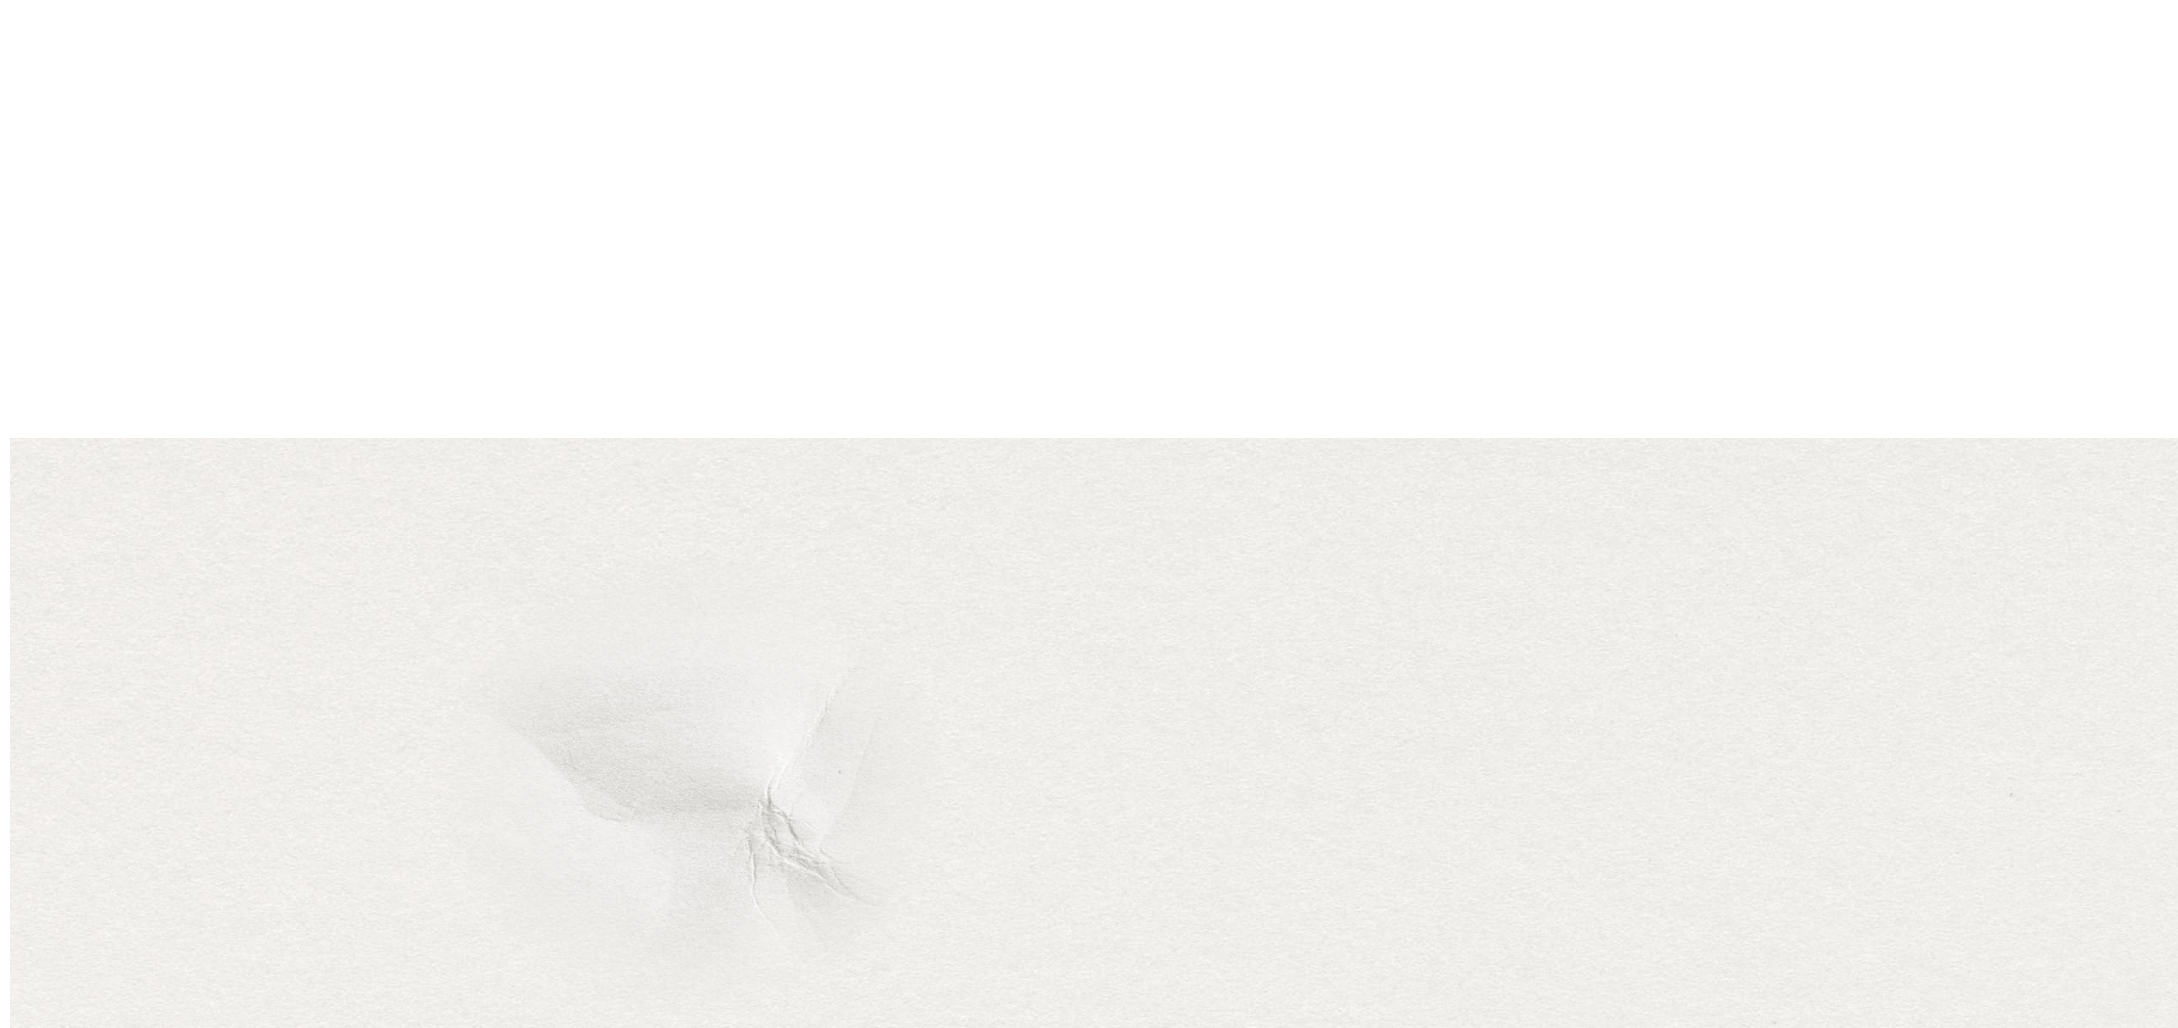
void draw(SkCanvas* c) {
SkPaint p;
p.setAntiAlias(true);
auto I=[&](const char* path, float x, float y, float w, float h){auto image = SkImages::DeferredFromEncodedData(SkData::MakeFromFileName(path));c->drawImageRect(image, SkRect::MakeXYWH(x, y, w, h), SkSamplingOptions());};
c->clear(0xffffffff);
I("1.png",10,438,2168,590);
}
